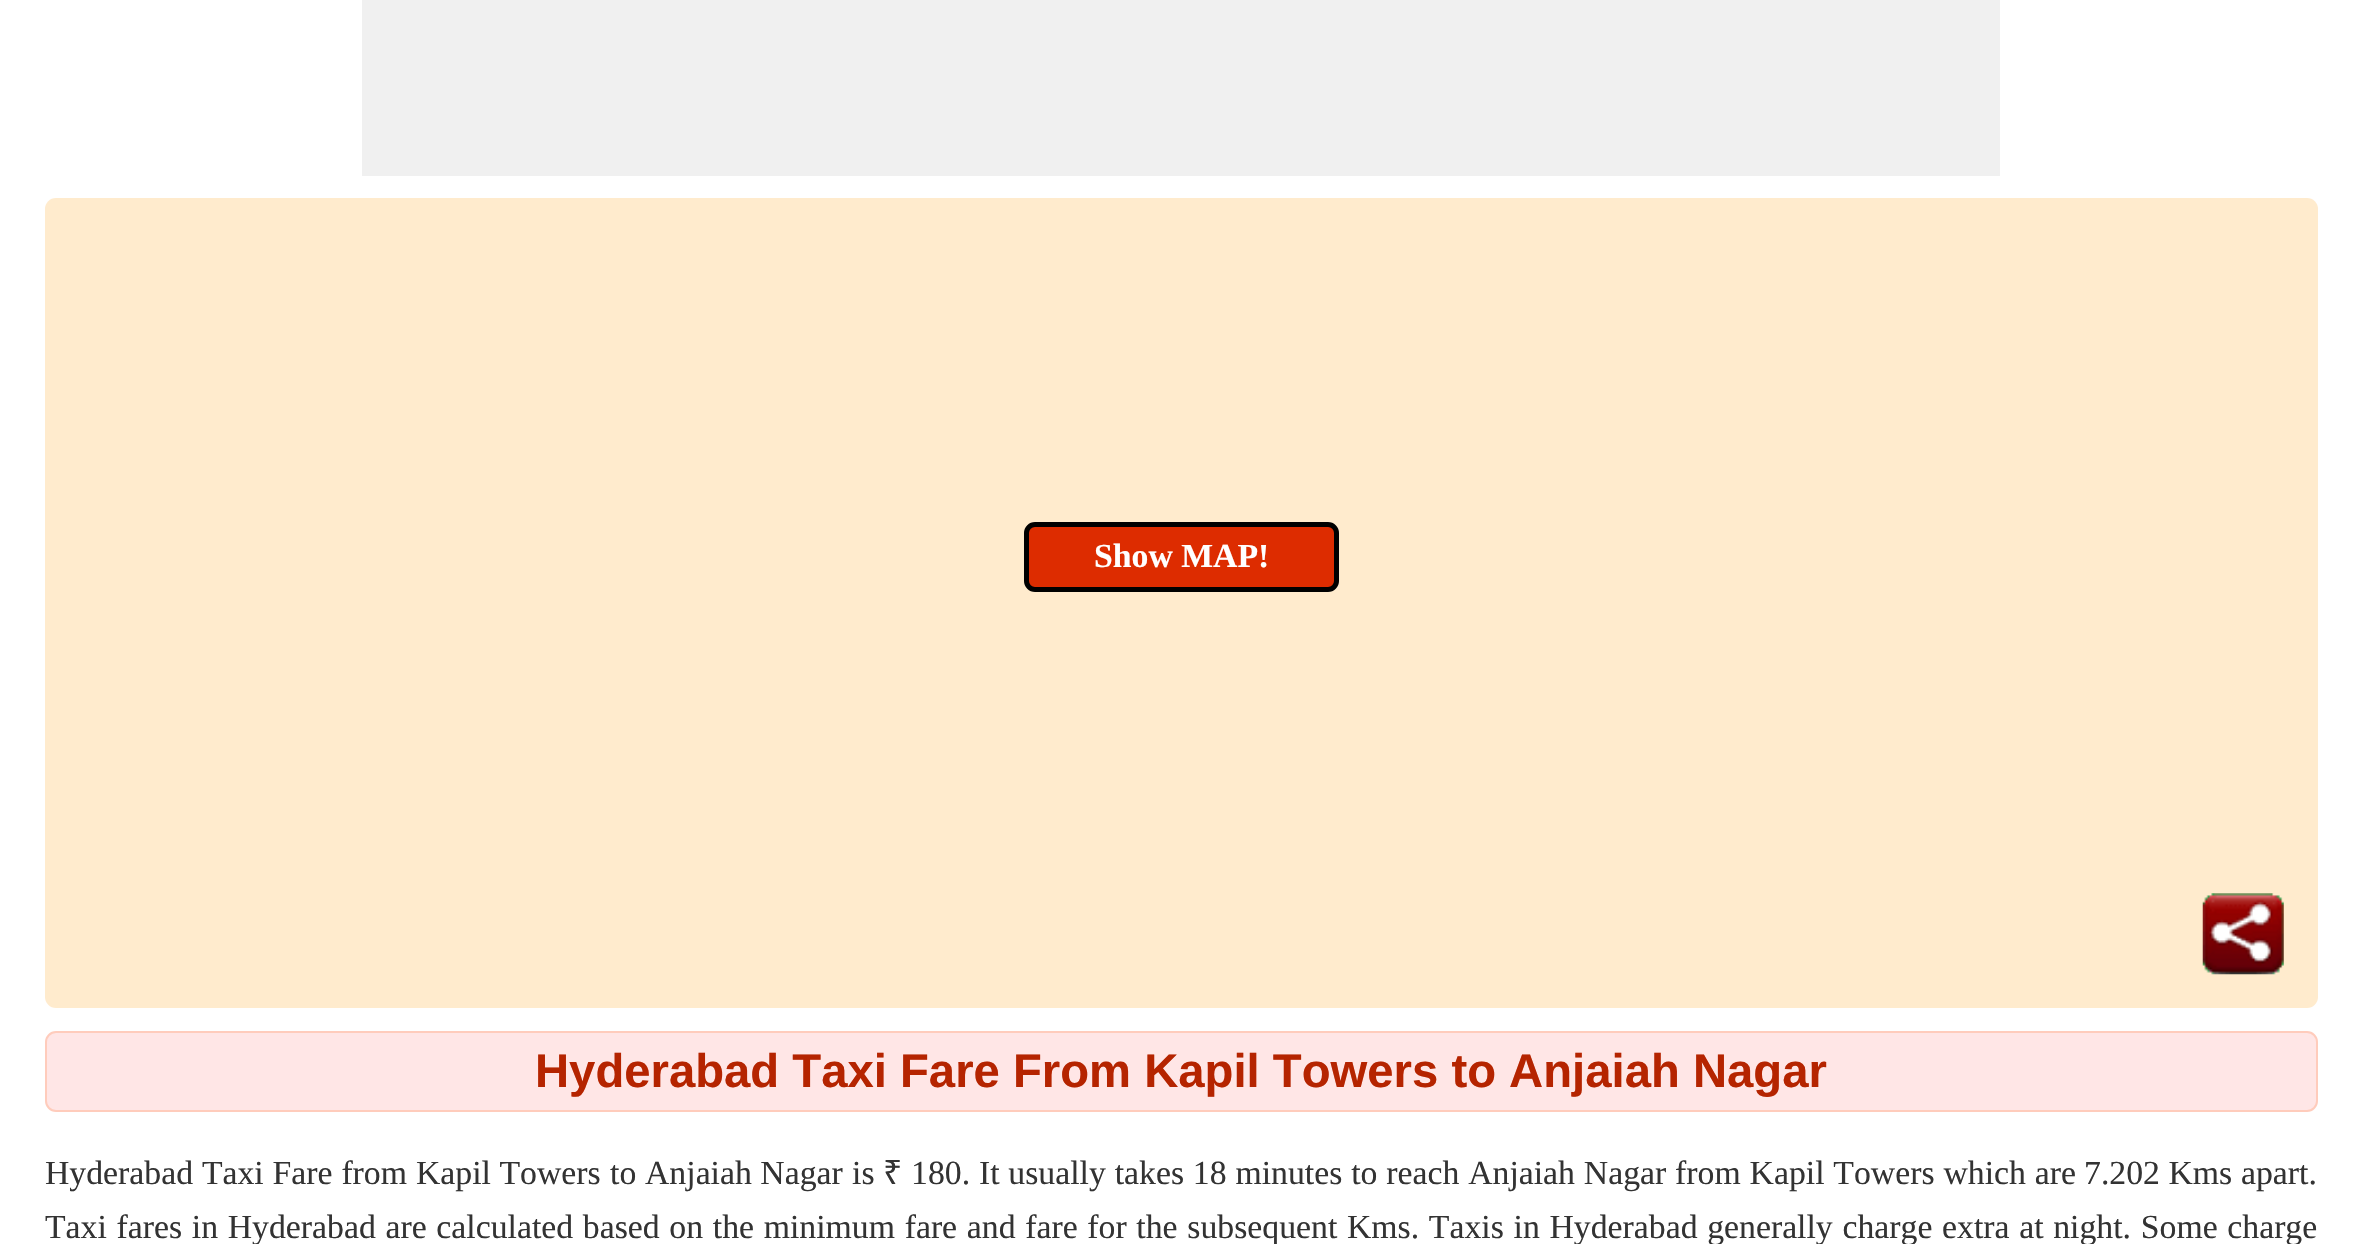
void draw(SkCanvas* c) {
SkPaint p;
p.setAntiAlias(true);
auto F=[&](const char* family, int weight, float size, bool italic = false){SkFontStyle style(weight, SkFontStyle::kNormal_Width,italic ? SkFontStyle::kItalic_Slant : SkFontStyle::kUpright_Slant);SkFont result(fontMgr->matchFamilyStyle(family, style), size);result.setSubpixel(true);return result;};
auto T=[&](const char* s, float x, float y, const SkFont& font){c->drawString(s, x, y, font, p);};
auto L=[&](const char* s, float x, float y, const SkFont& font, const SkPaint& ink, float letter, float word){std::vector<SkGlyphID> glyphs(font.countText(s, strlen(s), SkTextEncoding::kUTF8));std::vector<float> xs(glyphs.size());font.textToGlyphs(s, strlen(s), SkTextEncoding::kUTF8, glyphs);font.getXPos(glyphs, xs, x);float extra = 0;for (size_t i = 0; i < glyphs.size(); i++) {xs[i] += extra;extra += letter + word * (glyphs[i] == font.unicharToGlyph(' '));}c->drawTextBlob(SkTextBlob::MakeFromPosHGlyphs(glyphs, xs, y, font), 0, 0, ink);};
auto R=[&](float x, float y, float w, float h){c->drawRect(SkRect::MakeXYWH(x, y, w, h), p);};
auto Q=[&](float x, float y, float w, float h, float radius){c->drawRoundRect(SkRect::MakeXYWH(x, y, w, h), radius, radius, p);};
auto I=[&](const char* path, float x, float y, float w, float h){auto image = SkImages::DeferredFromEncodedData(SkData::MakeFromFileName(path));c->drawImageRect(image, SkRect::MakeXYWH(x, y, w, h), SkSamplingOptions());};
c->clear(0xffffffff);
p.setColor(0xfff0f0f0);
R(362,0,1638,176);
p.setColor(0xffffebcd);
Q(45,198,2273,810,11);
p.setColor(0xffdd2c00);
c->drawRoundRect(SkRect::MakeXYWH(1026.5,524.5,310,65),8.5,8.5,p);
p.setStroke(true);
p.setStrokeWidth(5);
p.setColor(0xff000000);
c->drawRoundRect(SkRect::MakeXYWH(1026.5,524.5,310,65),8.5,8.5,p);
auto f1 = F("Liberation Serif",700,33.75);
p.setStroke(false);
p.setColor(0xffffffff);
T("Show MAP!",1094,567,f1);
p.setColor(0xffffe6e6);
c->drawRoundRect(SkRect::MakeXYWH(46,1032,2271,79),10,10,p);
p.setStroke(true);
p.setStrokeWidth(2);
p.setColor(0xffffccbc);
c->drawRoundRect(SkRect::MakeXYWH(46,1032,2271,79),10,10,p);
auto f2 = F("Liberation Sans",700,47.25);
p.setStroke(false);
p.setColor(0xffb52400);
T("Hyderabad Taxi Fare From Kapil Towers to Anjaiah Nagar",535,1087,f2);
auto f3 = F("Liberation Serif",400,33.75);
p.setColor(0xff333333);
L("Hyderabad Taxi Fare from",45,1184,f3,p,0,.4);
T("Kapil Towers",416,1184,f3);
T("to",610,1184,f3);
T("Anjaiah Nagar",645,1184,f3);
T("is",852,1184,f3);
auto f4 = F("Noto Sans",400,33.75);
T("₹",883,1184,f4);
L("180. It usually takes 18 minutes to reach Anjaiah Nagar from Kapil Towers which are",911,1184,f3,p,0,.4);
T("7.202 Kms",2084,1184,f3);
T("apart.",2241,1184,f3);
L("Taxi fares in Hyderabad are calculated based on the minimum fare and fare for the subsequent Kms. Taxis in Hyderabad generally charge extra at night. Some charge",45,1238,f3,p,0,1.25);
I("1.png",2202,893,82,82);
}
